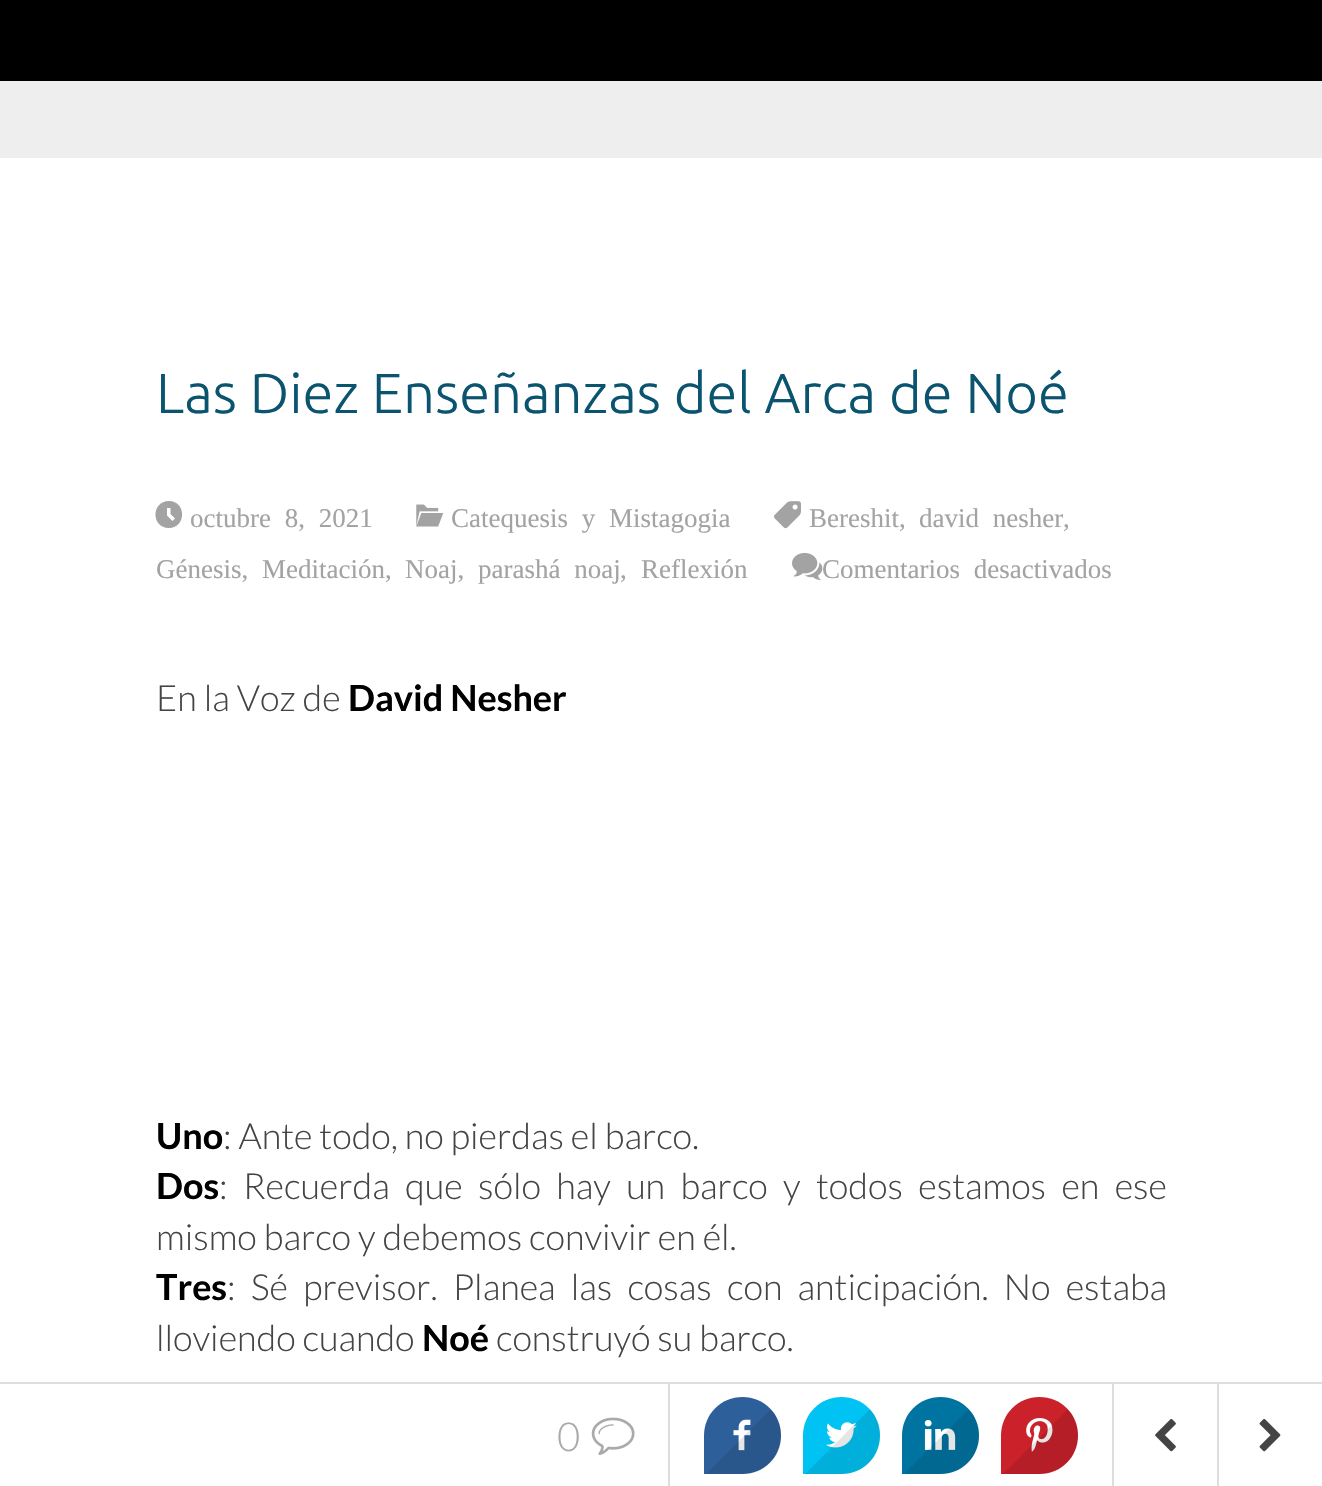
void draw(SkCanvas* c) {
SkPaint p;
p.setAntiAlias(true);
auto F=[&](const char* family, int weight, float size, bool italic = false){SkFontStyle style(weight, SkFontStyle::kNormal_Width,italic ? SkFontStyle::kItalic_Slant : SkFontStyle::kUpright_Slant);SkFont result(fontMgr->matchFamilyStyle(family, style), size);result.setSubpixel(true);return result;};
auto T=[&](const char* s, float x, float y, const SkFont& font){c->drawString(s, x, y, font, p);};
auto L=[&](const char* s, float x, float y, const SkFont& font, const SkPaint& ink, float letter, float word){std::vector<SkGlyphID> glyphs(font.countText(s, strlen(s), SkTextEncoding::kUTF8));std::vector<float> xs(glyphs.size());font.textToGlyphs(s, strlen(s), SkTextEncoding::kUTF8, glyphs);font.getXPos(glyphs, xs, x);float extra = 0;for (size_t i = 0; i < glyphs.size(); i++) {xs[i] += extra;extra += letter + word * (glyphs[i] == font.unicharToGlyph(' '));}c->drawTextBlob(SkTextBlob::MakeFromPosHGlyphs(glyphs, xs, y, font), 0, 0, ink);};
auto R=[&](float x, float y, float w, float h){c->drawRect(SkRect::MakeXYWH(x, y, w, h), p);};
auto I=[&](const char* path, float x, float y, float w, float h){auto image = SkImages::DeferredFromEncodedData(SkData::MakeFromFileName(path));c->drawImageRect(image, SkRect::MakeXYWH(x, y, w, h), SkSamplingOptions());};
auto P=[&](const char* data, bool evenOdd = false){SkPath result = *SkParsePath::FromSVGString(data);if (evenOdd) result.setFillType(SkPathFillType::kEvenOdd);return result;};
c->clear(0xffeeeeee);
p.setColor(0xff000000);
R(0,0,1322,81);
p.setColor(0xffffffff);
R(0,158,1322,1224);
auto f1 = F("Ubuntu",300,56.25);
p.setColor(0xff0a5470);
T("Las Diez Enseñanzas del Arca de Noé",156,413,f1);
auto f2 = F("Liberation Serif",400,27);
p.setColor(0xffa4a3a3);
L("octubre 8, 2021",190,527,f2,p,0,7);
c->drawPath(P("M169 501c-18 0-18 27 0 27c17.5 0 17.5-27 0-27zm3.5 20l-5.5-5.5v-7.5h3.5v6l4.5 4.5z"),p);
I("1.png",416,504,28,23);
L("Catequesis y Mistagogia",451,527,f2,p,0,7);
I("2.png",774,501,27,28);
T("Bereshit,",809,527,f2);
L("david nesher",919,527,f2,p,0,7);
T(",",1063,527,f2);
T("Génesis,",156,578,f2);
T("Meditación,",262,578,f2);
T("Noaj,",405,578,f2);
L("parashá noaj",478,578,f2,p,0,7);
T(",",620,578,f2);
T("Reflexión",641,578,f2);
I("3.png",792,552,31,28);
L("Comentarios desactivados",822,578,f2,p,0,7);
auto f3 = F("Lato",300,36);
p.setColor(0xff444444);
T("En la Voz de",156,711,f3);
auto f4 = F("Lato",700,36);
p.setColor(0xff000000);
T("David Nesher",348,711,f4);
T("Uno",156,1149,f4);
p.setColor(0xff444444);
T(": Ante todo, no pierdas el barco.",223,1149,f3);
p.setColor(0xff000000);
T("Dos",156,1199,f4);
p.setColor(0xff444444);
L(": Recuerda que sólo hay un barco y todos estamos en ese",219,1199,f3,p,0,8.4);
T("mismo barco y debemos convivir en él.",156,1250,f3);
p.setColor(0xff000000);
T("Tres",156,1300,f4);
p.setColor(0xff444444);
L(": Sé previsor. Planea las cosas con anticipación. No estaba",227,1300,f3,p,0,8.25);
T("lloviendo cuando",156,1351,f3);
p.setColor(0xff000000);
T("Noé",422,1351,f4);
p.setColor(0xff444444);
T("construyó su barco.",496,1351,f3);
p.setColor(0xffffffff);
R(0,1384,1322,102);
p.setColor(0xffdddddd);
R(0,1382,1322,2);
auto f5 = F("Lato",300,40);
p.setColor(0xffaaaaaa);
T("0",557,1451,f5);
I("4.png",591,1417,44,38);
p.setColor(0xffdddddd);
R(668,1384,2,102);
p.setColor(0xff2d609b);
c->drawPath(P("M742.5 1397c21.5 0 38.5 17 38.5 38.5c0 21.5-17 38.5-38.5 38.5h-38.5v-38.5c0-21.5 17-38.5 38.5-38.5z"),p);
I("5.png",733,1419,18,32);
p.setColor(0x1a000000);
c->drawPath(P("M706 1474l65-65c6 7 10 16 10 27c0 21-17 38-39 38z"),p);
p.setColor(0xff00c3f3);
c->drawPath(P("M841.5 1397c21.5 0 38.5 17 38.5 38.5c0 21.5-17 38.5-38.5 38.5h-38.5v-38.5c0-21.5 17-38.5 38.5-38.5z"),p);
I("6.png",826,1422,31,26);
p.setColor(0x1a000000);
c->drawPath(P("M805 1474l65-65c6 7 10 16 10 27c0 21-17 38-38 38z"),p);
p.setColor(0xff0074a1);
c->drawPath(P("M940.5 1397c21.5 0 38.5 17 38.5 38.5c0 21.5-17 38.5-38.5 38.5h-38.5v-38.5c0-21.5 17-38.5 38.5-38.5z"),p);
I("7.png",924,1420,32,30);
p.setColor(0x1a000000);
c->drawPath(P("M904 1474l65-65c6 7 10 16 10 27c0 21-17 38-39 38z"),p);
p.setColor(0xffca212a);
c->drawPath(P("M1039.5 1397c21.5 0 38.5 17 38.5 38.5c0 21.5-17 38.5-38.5 38.5h-38.5v-38.5c0-21.5 17-38.5 38.5-38.5z"),p);
I("8.png",1026,1418,27,34);
p.setColor(0x1a000000);
c->drawPath(P("M1003 1474l65-65c6 7 10 16 10 27c0 21-17 38-38 38z"),p);
p.setColor(0xffdddddd);
R(1112,1384,2,102);
I("9.png",1155,1419,21,33);
R(1217,1384,2,102);
I("10.png",1259,1419,22,33);
}
